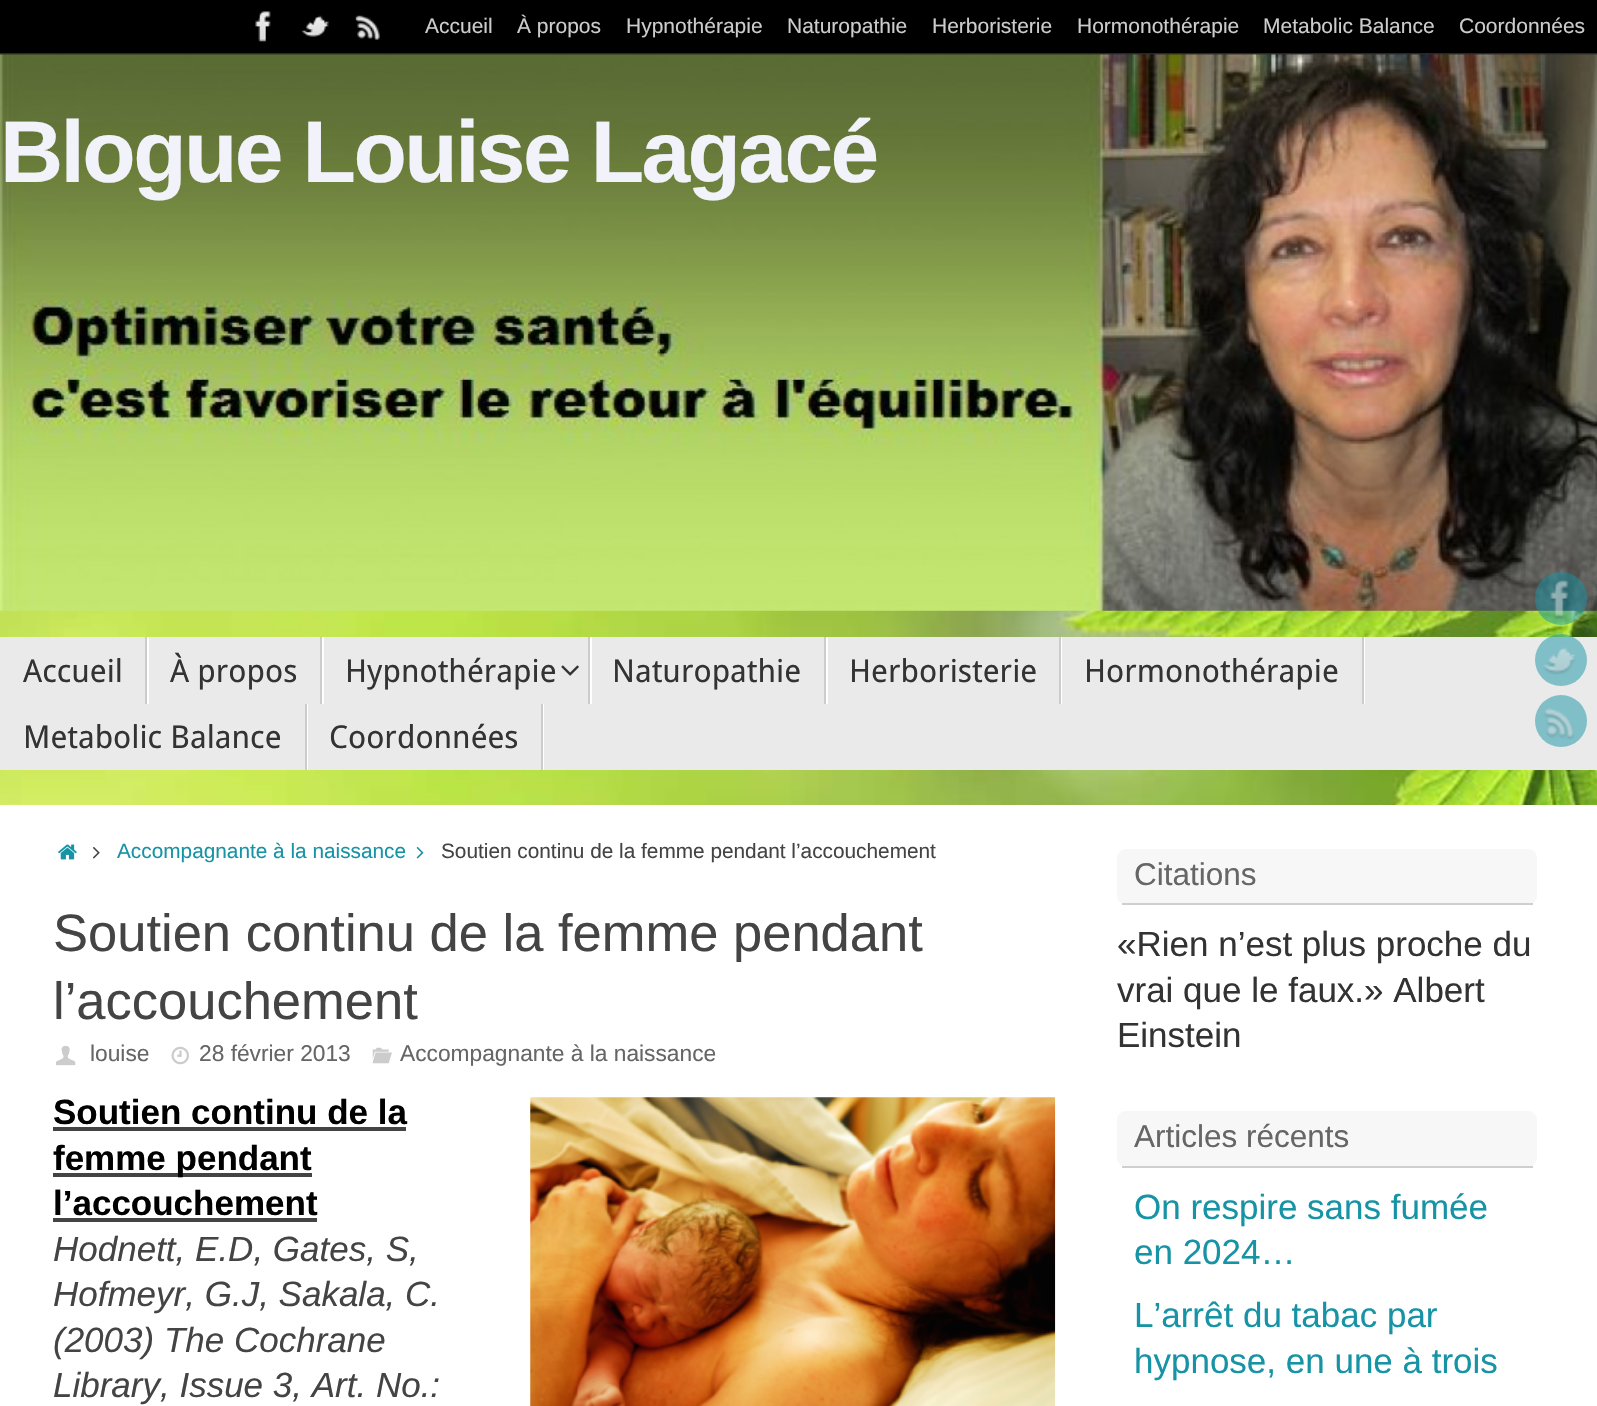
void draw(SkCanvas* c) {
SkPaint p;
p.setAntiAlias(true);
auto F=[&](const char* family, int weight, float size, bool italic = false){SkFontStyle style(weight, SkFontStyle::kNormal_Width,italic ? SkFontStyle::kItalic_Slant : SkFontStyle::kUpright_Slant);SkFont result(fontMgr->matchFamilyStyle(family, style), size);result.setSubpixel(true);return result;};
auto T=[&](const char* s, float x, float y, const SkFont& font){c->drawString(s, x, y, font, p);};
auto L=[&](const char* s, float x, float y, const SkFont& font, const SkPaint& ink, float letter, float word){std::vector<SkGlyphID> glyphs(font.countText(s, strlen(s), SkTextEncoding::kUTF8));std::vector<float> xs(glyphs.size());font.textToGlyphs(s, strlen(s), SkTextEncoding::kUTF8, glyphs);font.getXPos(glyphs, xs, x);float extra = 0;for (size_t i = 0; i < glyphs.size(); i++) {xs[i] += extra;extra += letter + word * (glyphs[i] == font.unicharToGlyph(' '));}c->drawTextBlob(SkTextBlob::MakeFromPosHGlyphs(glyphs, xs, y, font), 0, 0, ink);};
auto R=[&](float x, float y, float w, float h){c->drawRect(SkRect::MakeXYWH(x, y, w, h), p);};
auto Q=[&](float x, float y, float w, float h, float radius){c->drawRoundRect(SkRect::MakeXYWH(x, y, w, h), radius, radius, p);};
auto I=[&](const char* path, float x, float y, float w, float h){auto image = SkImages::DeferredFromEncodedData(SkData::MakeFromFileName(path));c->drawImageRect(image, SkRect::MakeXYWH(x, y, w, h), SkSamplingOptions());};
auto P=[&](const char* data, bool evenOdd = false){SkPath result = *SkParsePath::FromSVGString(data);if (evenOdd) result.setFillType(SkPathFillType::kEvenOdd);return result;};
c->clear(0xffffffff);
I("1.png",0,610,1597,195);
p.setColor(0xff000000);
R(0,0,1597,53);
p.setColor(0xff282828);
R(0,53,1597,2);
I("2.png",255,11,16,31);
I("3.png",301,15,28,22);
I("4.png",355,15,25,25);
auto f1 = F("Liberation Sans",400,21);
p.setColor(0xffcccccc);
T("Accueil",425,33,f1);
T("À propos",517,33,f1);
T("Hypnothérapie",626,33,f1);
T("Naturopathie",787,33,f1);
T("Herboristerie",932,33,f1);
T("Hormonothérapie",1077,33,f1);
T("Metabolic Balance",1263,33,f1);
T("Coordonnées",1459,33,f1);
I("5.png",0,54,1597,557);
auto f2 = F("Liberation Sans",700,87.5);
p.setColor(0xfff2f2fa);
L("Blogue Louise Lagacé",0,182,f2,p,-2.6,0);
p.setColor(0xffeaeaea);
R(0,637,1597,133);
p.setColor(0xffffffff);
c->drawPath(P("M2 704h147v-67h-2v67z"),p);
p.setColor(0xffcccccc);
R(145,637,2,67);
auto f3 = F("Droid Sans",400,31.5);
p.setColor(0xff333333);
T("Accueil",23,682,f3);
p.setColor(0xffffffff);
c->drawPath(P("M149 704h175v-67h-2v67z"),p);
p.setColor(0xffcccccc);
R(320,637,2,67);
p.setColor(0xff333333);
T("À propos",170,682,f3);
p.setColor(0xffffffff);
c->drawPath(P("M324 704h268v-67h-2v67z"),p);
p.setColor(0xffcccccc);
R(588,637,2,67);
p.setColor(0xff333333);
T("Hypnothérapie",345,682,f3);
I("6.png",561,665,18,11);
p.setColor(0xffffffff);
c->drawPath(P("M592 704h236v-67h-2v67z"),p);
p.setColor(0xffcccccc);
R(824,637,2,67);
p.setColor(0xff333333);
T("Naturopathie",612,682,f3);
p.setColor(0xffffffff);
c->drawPath(P("M828 704h234v-67h-2v67z"),p);
p.setColor(0xffcccccc);
R(1059,637,2,67);
p.setColor(0xff333333);
T("Herboristerie",849,682,f3);
p.setColor(0xffffffff);
c->drawPath(P("M1062 704h303v-67h-2v67z"),p);
p.setColor(0xffcccccc);
R(1362,637,2,67);
p.setColor(0xff333333);
T("Hormonothérapie",1084,682,f3);
p.setColor(0xffffffff);
R(307,704,1,66);
p.setColor(0xffcccccc);
R(305,704,2,66);
p.setColor(0xff333333);
T("Metabolic Balance",23,748,f3);
p.setColor(0xffffffff);
R(543,704,1,66);
p.setColor(0xffcccccc);
R(541,704,2,66);
p.setColor(0xff333333);
T("Coordonnées",329,748,f3);
p.setColor(0x801693a5);
Q(1535,572,52,53,26);
I("7.png",1550,580,19,39);
c->drawCircle(1561,660,26,p);
I("8.png",1543,647,33,28);
p.setColor(0xff80bfc8);
c->drawCircle(1561,721,26,p);
I("9.png",1544,708,31,32);
I("10.png",58,844,19,16);
I("11.png",92,847,8,12);
auto f4 = F("Liberation Sans",400,20.8);
p.setColor(0xff1693a5);
T("Accompagnante à la naissance",117,858,f4);
I("12.png",416,847,8,12);
p.setColor(0xff444444);
T("Soutien continu de la femme pendant l’accouchement",441,858,f4);
auto f5 = F("Liberation Sans",400,52.5);
T("Soutien continu de la femme pendant",53,951,f5);
T("l’accouchement",53,1019,f5);
I("13.png",56,1045,20,21);
auto f6 = F("Liberation Sans",400,22.75);
p.setColor(0xff666666);
T("louise",90,1061,f6);
I("14.png",171,1046,18,19);
T("28 février 2013",199,1061,f6);
I("15.png",372,1047,20,17);
T("Accompagnante à la naissance",400,1061,f6);
auto f7 = F("Liberation Sans",700,35);
p.setColor(0xff000000);
T("Soutien continu de la",53,1124,f7);
p.setColor(0xff444444);
R(53,1127,353,4);
I("16.png",530,1097,526,309);
R(53,1173,259,4);
p.setColor(0xff000000);
T("femme pendant",53,1170,f7);
T("l’accouchement",53,1215,f7);
p.setColor(0xff444444);
R(53,1218,264,4);
auto f8 = F("Liberation Sans",400,35,true);
T("Hodnett, E.D, Gates, S,",53,1261,f8);
T("Hofmeyr, G.J, Sakala, C.",53,1306,f8);
T("(2003) The Cochrane",53,1352,f8);
T("Library, Issue 3, Art. No.:",53,1397,f8);
p.setColor(0xfff7f7f7);
Q(1117,849,420,56,9);
p.setColor(0xffcfcfcf);
R(1122,903,411,2);
auto f9 = F("Liberation Sans",400,31.5);
p.setColor(0xff666666);
T("Citations",1134,885,f9);
auto f10 = F("Liberation Sans",400,35);
p.setColor(0xff333333);
T("«Rien n’est plus proche du",1117,956,f10);
T("vrai que le faux.» Albert",1117,1002,f10);
T("Einstein",1117,1047,f10);
p.setColor(0xfff7f7f7);
Q(1117,1111,420,56,9);
p.setColor(0xffcfcfcf);
R(1122,1166,411,2);
p.setColor(0xff666666);
T("Articles récents",1134,1147,f9);
p.setColor(0xff1693a5);
T("On respire sans fumée",1134,1219,f10);
T("en 2024…",1134,1264,f10);
T("L’arrêt du tabac par",1134,1327,f10);
T("hypnose, en une à trois",1134,1373,f10);
}
